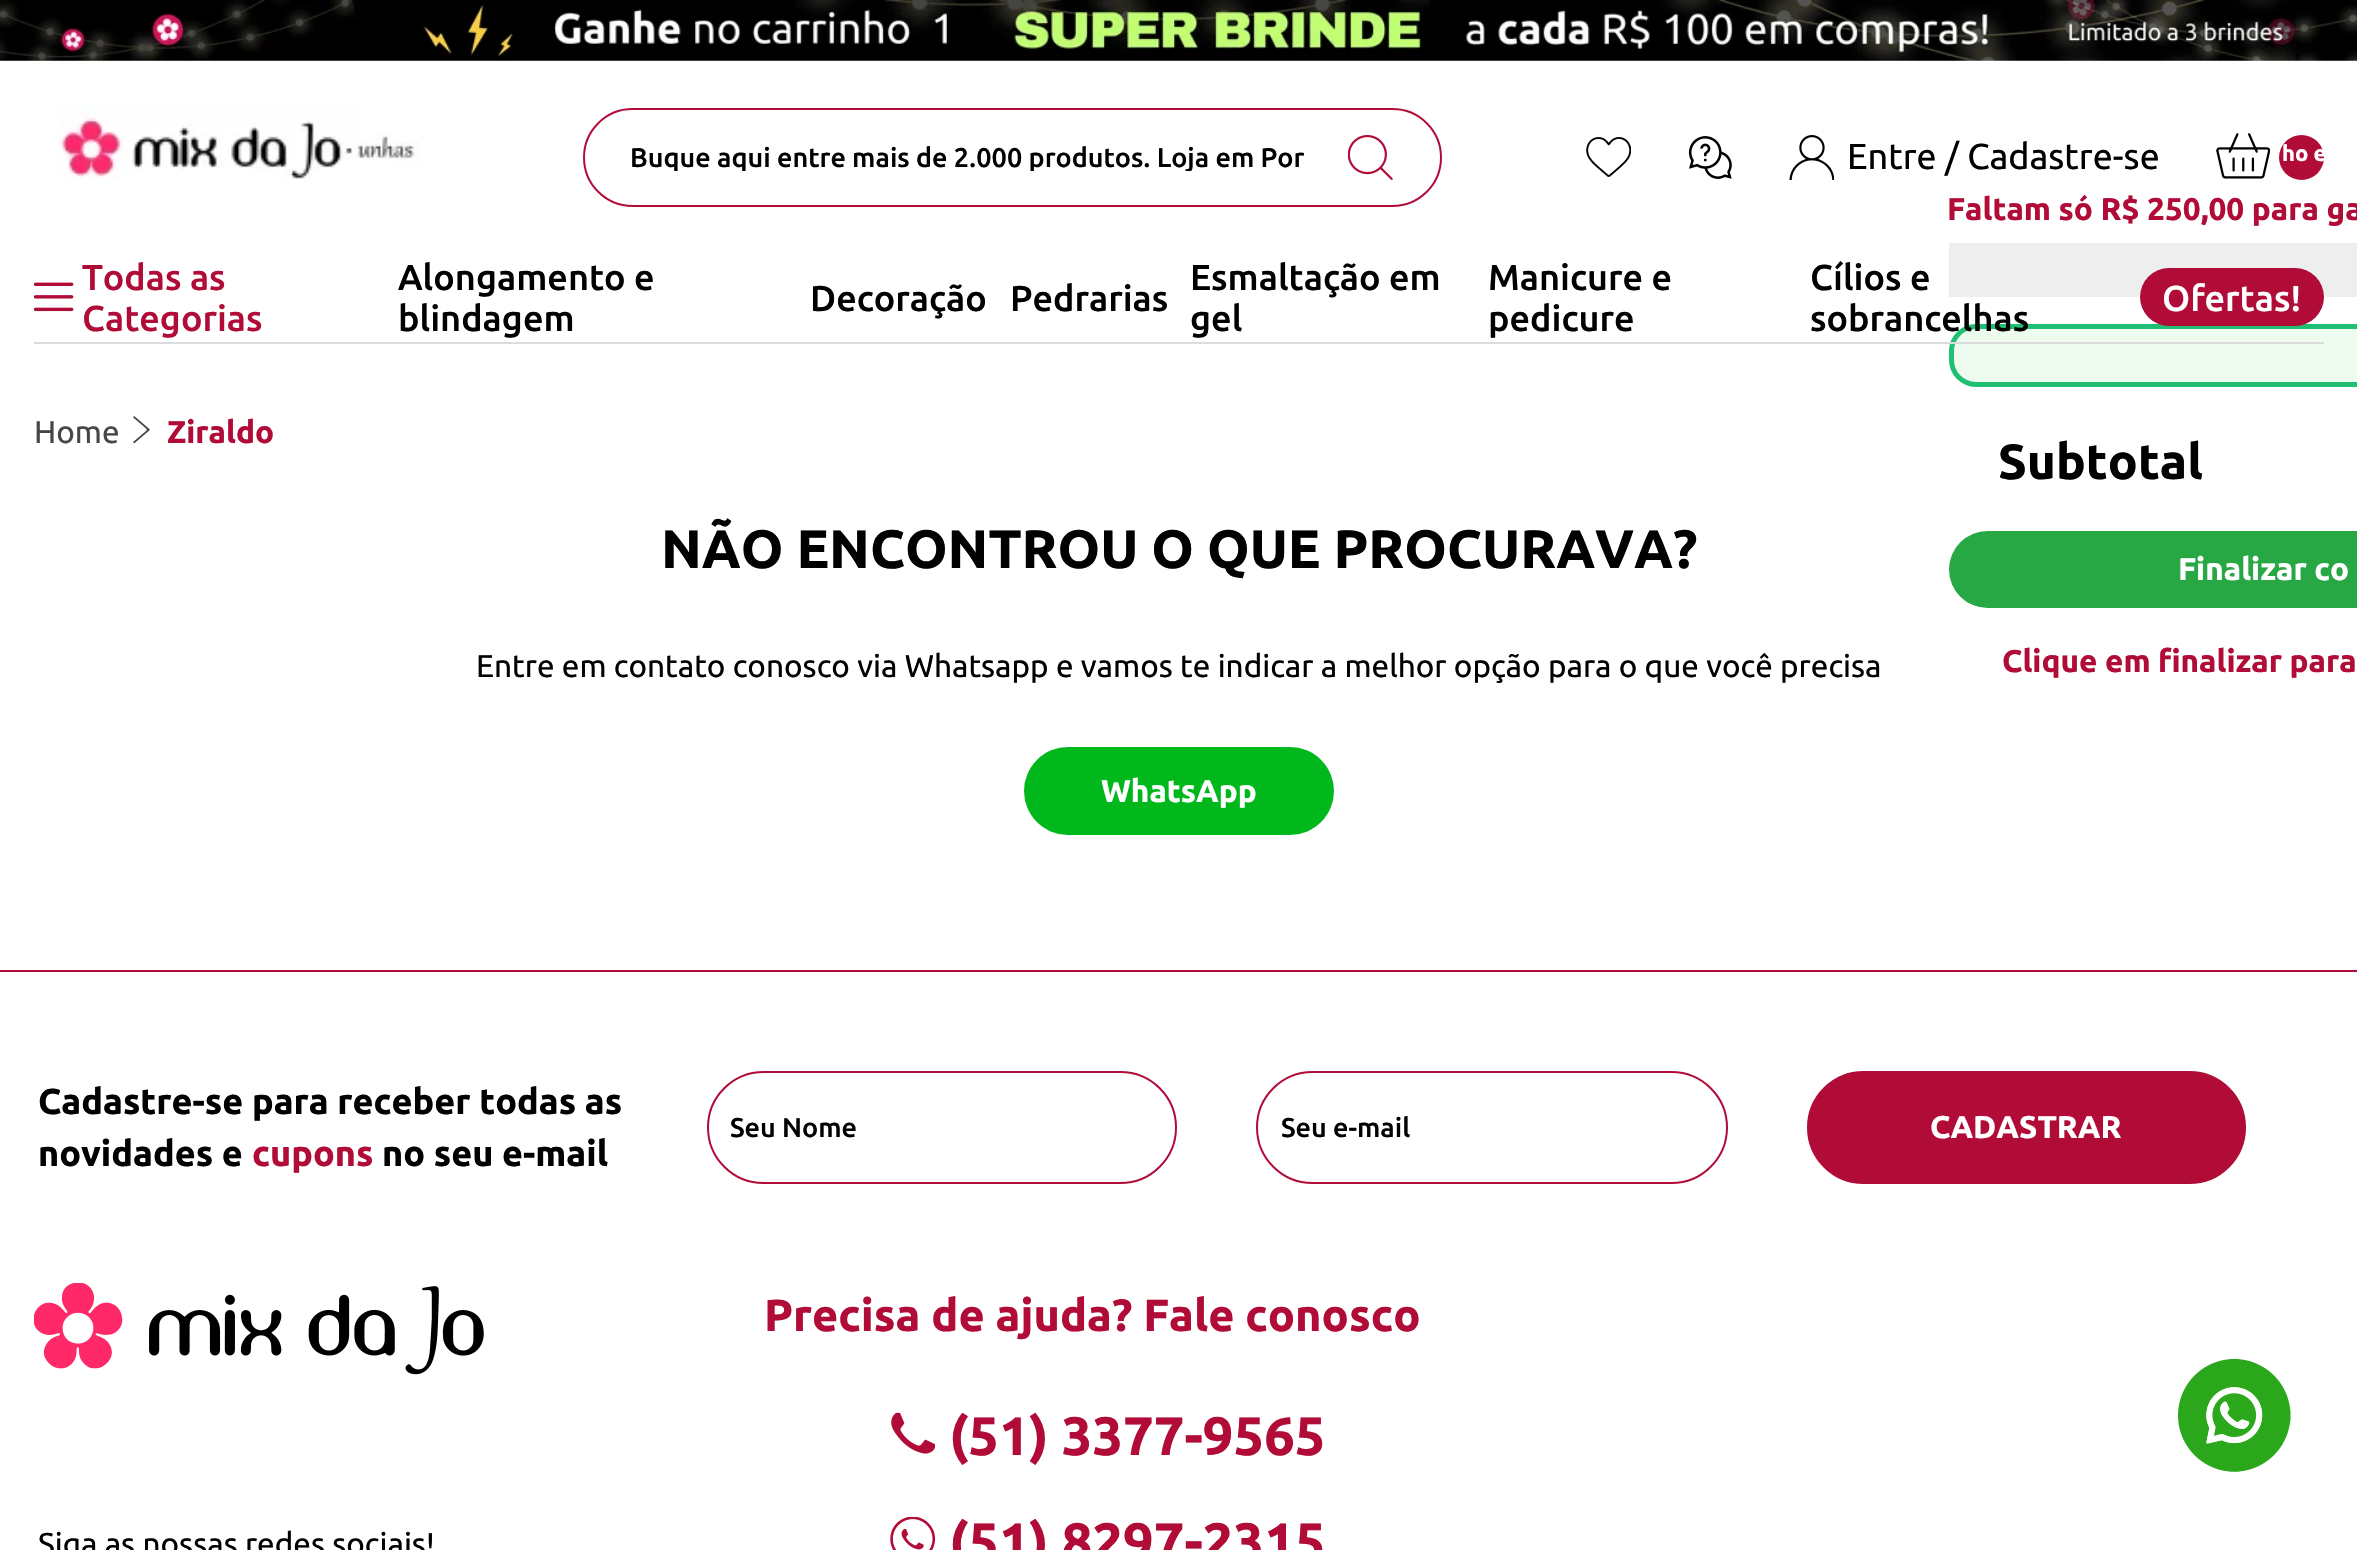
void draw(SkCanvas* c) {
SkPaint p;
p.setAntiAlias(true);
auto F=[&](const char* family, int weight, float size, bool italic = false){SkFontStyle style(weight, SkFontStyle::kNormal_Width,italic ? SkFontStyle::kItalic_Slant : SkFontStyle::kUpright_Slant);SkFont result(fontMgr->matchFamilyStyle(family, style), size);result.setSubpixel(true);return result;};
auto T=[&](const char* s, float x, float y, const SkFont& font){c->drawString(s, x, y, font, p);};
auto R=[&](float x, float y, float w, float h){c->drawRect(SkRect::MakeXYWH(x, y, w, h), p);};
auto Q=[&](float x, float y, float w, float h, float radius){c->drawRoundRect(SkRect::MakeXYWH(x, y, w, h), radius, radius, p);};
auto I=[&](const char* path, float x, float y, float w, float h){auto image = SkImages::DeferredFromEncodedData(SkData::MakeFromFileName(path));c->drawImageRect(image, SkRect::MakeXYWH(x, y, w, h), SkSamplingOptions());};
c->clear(0xffffffff);
I("1.png",0,0,2357,61);
I("2.png",58,106,362,73);
p.setStroke(true);
p.setStrokeWidth(2);
p.setColor(0xffb10c38);
c->drawRoundRect(SkRect::MakeXYWH(584,109,857,97),48.5,48.5,p);
c->save();
c->clipRect(SkRect::MakeXYWH(630,142,675,29));
auto f1 = F("Ubuntu",500,27);
p.setStroke(false);
p.setColor(0xff010101);
T("Buque aqui entre mais de 2.000 produtos. Loja em Por",630,167,f1);
c->restore();
I("3.png",1348,135,45,45);
I("4.png",1586,137,45,40);
I("5.png",1688,136,44,43);
I("6.png",1789,135,45,45);
auto f2 = F("Ubuntu",400,36);
T("Entre / Cadastre-se",1847,169,f2);
I("7.png",2216,133,54,46);
p.setColor(0xffb10c38);
c->drawCircle(2301.5,157.5,22.5,p);
auto f3 = F("Ubuntu",700,22);
p.setColor(0xffffffff);
T("ho e",2282,161,f3);
auto f4 = F("Ubuntu",700,31.5);
p.setColor(0xffb10c38);
T("Faltam só R$ 250,00 para ga",1947,220,f4);
p.setColor(0xffeeeeee);
R(1949,243,408,54);
p.setColor(0xffeefbef);
c->drawRoundRect(SkRect::MakeXYWH(1951.5,326.5,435,58),24.5,24.5,p);
p.setStroke(true);
p.setStrokeWidth(5);
p.setColor(0xff21bf73);
c->drawRoundRect(SkRect::MakeXYWH(1951.5,326.5,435,58),24.5,24.5,p);
auto f5 = F("Ubuntu",700,49.5);
p.setStroke(false);
p.setColor(0xff010101);
T("Subtotal",1998,479,f5);
p.setColor(0xff28a745);
Q(1949,531,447,77,38.5);
p.setColor(0xffffffff);
T("Finalizar co",2178,580,f4);
p.setColor(0xffb10c38);
T("Clique em finalizar para",2002,672,f4);
p.setColor(0xffdcdcdc);
R(34,342,2290,2);
auto f6 = F("Ubuntu",500,36);
p.setColor(0xffb10c38);
T("Todas as",82,290,f6);
I("8.png",34,282,40,30);
T("Categorias",82,331,f6);
p.setColor(0xff010101);
T("Alongamento e",398,290,f6);
T("blindagem",398,331,f6);
T("Decoração",810,311,f6);
T("Pedrarias",1010,311,f6);
T("Esmaltação em",1190,290,f6);
T("gel",1190,331,f6);
T("Manicure e",1488,290,f6);
T("pedicure",1488,331,f6);
T("Cílios e",1810,290,f6);
T("sobrancelhas",1810,331,f6);
p.setColor(0xffb10c38);
Q(2140,268,184,58,29);
p.setColor(0xffffffff);
T("Ofertas!",2162,311,f6);
auto f7 = F("Ubuntu",400,31.5);
p.setColor(0xff464646);
T("Home",34,443,f7);
I("9.png",133,416,17,27);
p.setColor(0xffb10c38);
T("Ziraldo",167,443,f4);
auto f8 = F("Ubuntu",700,54);
p.setColor(0xff010101);
T("NÃO ENCONTROU O QUE PROCURAVA?",661,568,f8);
T("Entre em contato conosco via Whatsapp e vamos te indicar a melhor opção para o que você precisa",476,677,f7);
p.setColor(0xff00b81b);
Q(1024,747,310,88,44);
p.setColor(0xffffffff);
T("WhatsApp",1101,802,f4);
p.setColor(0xffb10c38);
R(0,970,2357,2);
auto f9 = F("Ubuntu",700,36);
p.setColor(0xff010101);
T("Cadastre-se para receber todas as",38,1114,f9);
T("novidades e",38,1166,f9);
p.setColor(0xffb10c38);
T("cupons",252,1166,f9);
p.setColor(0xff010101);
T("no seu e-mail",382,1166,f9);
p.setStroke(true);
p.setStrokeWidth(2);
p.setColor(0xffb10c38);
c->drawRoundRect(SkRect::MakeXYWH(708,1072,468,111),55.5,55.5,p);
p.setStroke(false);
p.setColor(0xff010101);
T("Seu Nome",730,1137,f1);
p.setStroke(true);
p.setColor(0xffb10c38);
c->drawRoundRect(SkRect::MakeXYWH(1257,1072,470,111),55.5,55.5,p);
p.setStroke(false);
p.setColor(0xff010101);
T("Seu e-mail",1281,1137,f1);
p.setColor(0xffb10c38);
c->drawRoundRect(SkRect::MakeXYWH(1808,1072,437,111),55.5,55.5,p);
p.setStroke(true);
c->drawRoundRect(SkRect::MakeXYWH(1808,1072,437,111),55.5,55.5,p);
p.setStroke(false);
p.setColor(0xffffffff);
T("CADASTRAR",1930,1138,f4);
I("10.png",34,1283,450,92);
p.setColor(0xff010101);
T("Siga as nossas redes sociais!",38,1555,f7);
auto f10 = F("Ubuntu",700,45);
p.setColor(0xffb10c38);
T("Precisa de ajuda? Fale conosco",764,1331,f10);
I("11.png",891,1412,44,42);
T("(51) 3377-9565",949,1455,f8);
I("12.png",890,1517,46,33);
T("(51) 8297-2315",949,1561,f8);
I("13.png",2178,1359,113,113);
}
